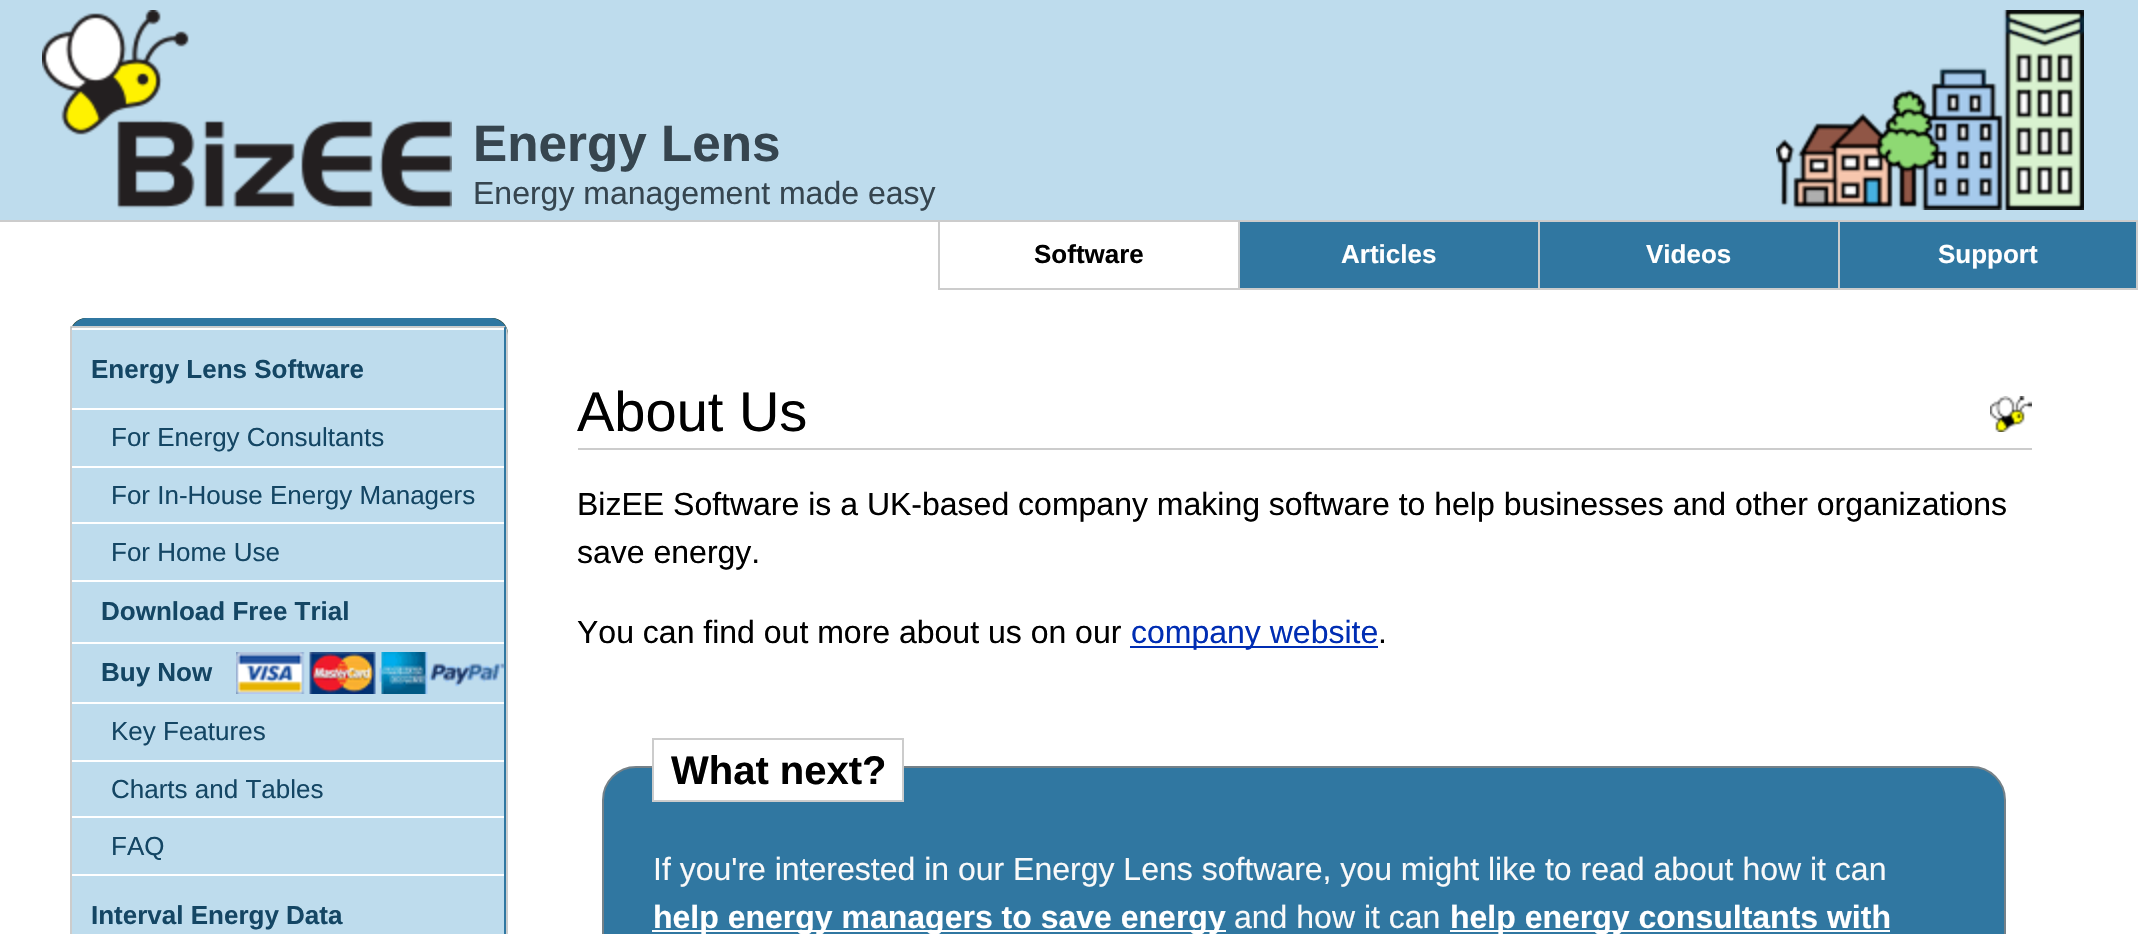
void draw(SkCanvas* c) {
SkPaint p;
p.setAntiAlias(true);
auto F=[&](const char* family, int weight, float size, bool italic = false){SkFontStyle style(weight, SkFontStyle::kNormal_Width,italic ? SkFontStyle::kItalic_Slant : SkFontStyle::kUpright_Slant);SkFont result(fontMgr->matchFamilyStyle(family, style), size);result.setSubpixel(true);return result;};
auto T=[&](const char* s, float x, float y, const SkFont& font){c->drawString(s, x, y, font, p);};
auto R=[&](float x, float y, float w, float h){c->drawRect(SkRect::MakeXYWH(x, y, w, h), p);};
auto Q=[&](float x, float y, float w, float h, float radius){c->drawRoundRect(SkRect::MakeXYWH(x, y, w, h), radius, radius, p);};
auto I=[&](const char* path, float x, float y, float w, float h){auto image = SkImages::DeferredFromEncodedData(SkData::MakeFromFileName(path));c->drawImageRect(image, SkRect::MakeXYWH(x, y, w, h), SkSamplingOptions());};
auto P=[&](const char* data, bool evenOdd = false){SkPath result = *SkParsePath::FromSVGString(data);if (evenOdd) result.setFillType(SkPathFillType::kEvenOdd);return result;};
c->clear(0xffffffff);
p.setColor(0xffbedced);
R(0,0,2138,220);
p.setColor(0xffcccccc);
R(0,220,2138,2);
I("1.png",42,10,410,199);
auto f1 = F("Liberation Sans",700,51.25);
p.setColor(0xff36454f);
T("Energy Lens",473,161,f1);
auto f2 = F("Liberation Sans",400,32);
T("Energy management made easy",473,204,f2);
I("2.png",1776,10,308,200);
p.setColor(0xffcccccc);
R(938,288,900,2);
R(938,222,2,68);
auto f3 = F("Liberation Sans",700,26);
p.setColor(0xff000000);
T("Software",1034,263,f3);
p.setColor(0xff3077a1);
R(1240,222,298,66);
p.setColor(0xffcccccc);
R(1238,222,2,68);
p.setColor(0xffffffff);
T("Articles",1341,263,f3);
p.setColor(0xff3077a1);
R(1540,222,298,66);
p.setColor(0xffcccccc);
R(1538,222,2,68);
p.setColor(0xffffffff);
T("Videos",1646,263,f3);
p.setColor(0xff3077a1);
R(1840,222,296,66);
p.setColor(0xffcccccc);
R(2136,222,2,68);
R(1838,288,300,2);
R(1838,222,2,68);
p.setColor(0xffffffff);
T("Support",1938,263,f3);
p.setColor(0xff234234);
Q(70,318,438,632,16);
p.setColor(0xff3077a1);
c->drawPath(P("M87 318c-9 0-17 8-17 17c0-5 8-9 17-9h404c6 0 11 2 14 5l1-4c-3-5-9-9-15-9z"),p);
p.setColor(0xffcccccc);
c->drawPath(P("M502 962c2-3 4-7 4-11v-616l-1-4l1-4c1 2 2 5 2 8v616c0 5-2 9-5 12z"),p);
p.setColor(0xffbedced);
c->drawPath(P("M72 328h432v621c0 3-7 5-15 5h-402c-8 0-15-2-15-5z"),p);
p.setColor(0xffcccccc);
c->drawPath(P("M70 326l2 2h432l2-2z"),p);
p.setColor(0xff3077a1);
c->drawPath(P("M506 326l-2 2v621l-1 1l1 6c1-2 2-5 2-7z"),p);
p.setColor(0xffcccccc);
c->drawPath(P("M72 328l-2-2v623c0 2 1 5 2 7l1-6l-1-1z"),p);
p.setColor(0xffffffff);
R(72,328,432,2);
p.setColor(0xff144664);
T("Energy Lens Software",91,378,f3);
p.setColor(0xffffffff);
R(72,408,432,2);
auto f4 = F("Liberation Sans",400,26);
p.setColor(0xff144664);
T("For Energy Consultants",111,446,f4);
p.setColor(0xffffffff);
R(72,466,432,2);
p.setColor(0xff144664);
T("For In-House Energy Managers",111,504,f4);
p.setColor(0xffffffff);
R(72,522,432,2);
p.setColor(0xff144664);
T("For Home Use",111,561,f4);
p.setColor(0xffffffff);
R(72,580,432,2);
p.setColor(0xff144664);
T("Download Free Trial",101,620,f3);
I("3.png",236,652,268,42);
p.setColor(0xffffffff);
R(72,642,432,2);
p.setColor(0xff144664);
T("Buy Now",101,681,f3);
p.setColor(0xffffffff);
R(72,702,432,2);
p.setColor(0xff144664);
T("Key Features",111,740,f4);
p.setColor(0xffffffff);
R(72,760,432,2);
p.setColor(0xff144664);
T("Charts and Tables",111,798,f4);
p.setColor(0xffffffff);
R(72,816,432,2);
p.setColor(0xff144664);
T("FAQ",111,855,f4);
p.setColor(0xffffffff);
R(72,874,432,2);
p.setColor(0xff144664);
T("Interval Energy Data",91,924,f3);
I("4.png",1990,396,42,36);
p.setColor(0xffcccccc);
R(578,448,1454,2);
auto f5 = F("Liberation Sans",400,56);
p.setColor(0xff000000);
T("About Us",577,431,f5);
T("BizEE Software is a UK-based company making software to help businesses and other organizations",577,515,f2);
T("save energy.",577,563,f2);
T("You can find out more about us on our",577,643,f2);
p.setColor(0xff002db3);
R(1130,646,248,2);
T("company website",1131,643,f2);
p.setColor(0xff000000);
T(".",1378,643,f2);
p.setColor(0xff3077a1);
c->drawRoundRect(SkRect::MakeXYWH(603,767,1402,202),33,33,p);
p.setStroke(true);
p.setStrokeWidth(2);
p.setColor(0xff758188);
c->drawRoundRect(SkRect::MakeXYWH(603,767,1402,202),33,33,p);
p.setStroke(false);
p.setColor(0xffffffff);
R(654,766,248,34);
p.setStroke(true);
p.setColor(0xffcccccc);
c->drawRect(SkRect::MakeXYWH(653,739,250,62),p);
auto f6 = F("Liberation Sans",700,40);
p.setStroke(false);
p.setColor(0xff000000);
T("What next?",671,784,f6);
p.setColor(0xfff9f9f9);
T("If you're interested in our Energy Lens software, you might like to read about how it can",653,880,f2);
p.setColor(0xffffffff);
R(652,930,574,2);
auto f7 = F("Liberation Sans",700,32);
T("help energy managers to save energy",653,928,f7);
p.setColor(0xfff9f9f9);
T("and how it can",1234,928,f2);
p.setColor(0xffffffff);
R(1450,930,440,2);
T("help energy consultants with",1450,928,f7);
}
